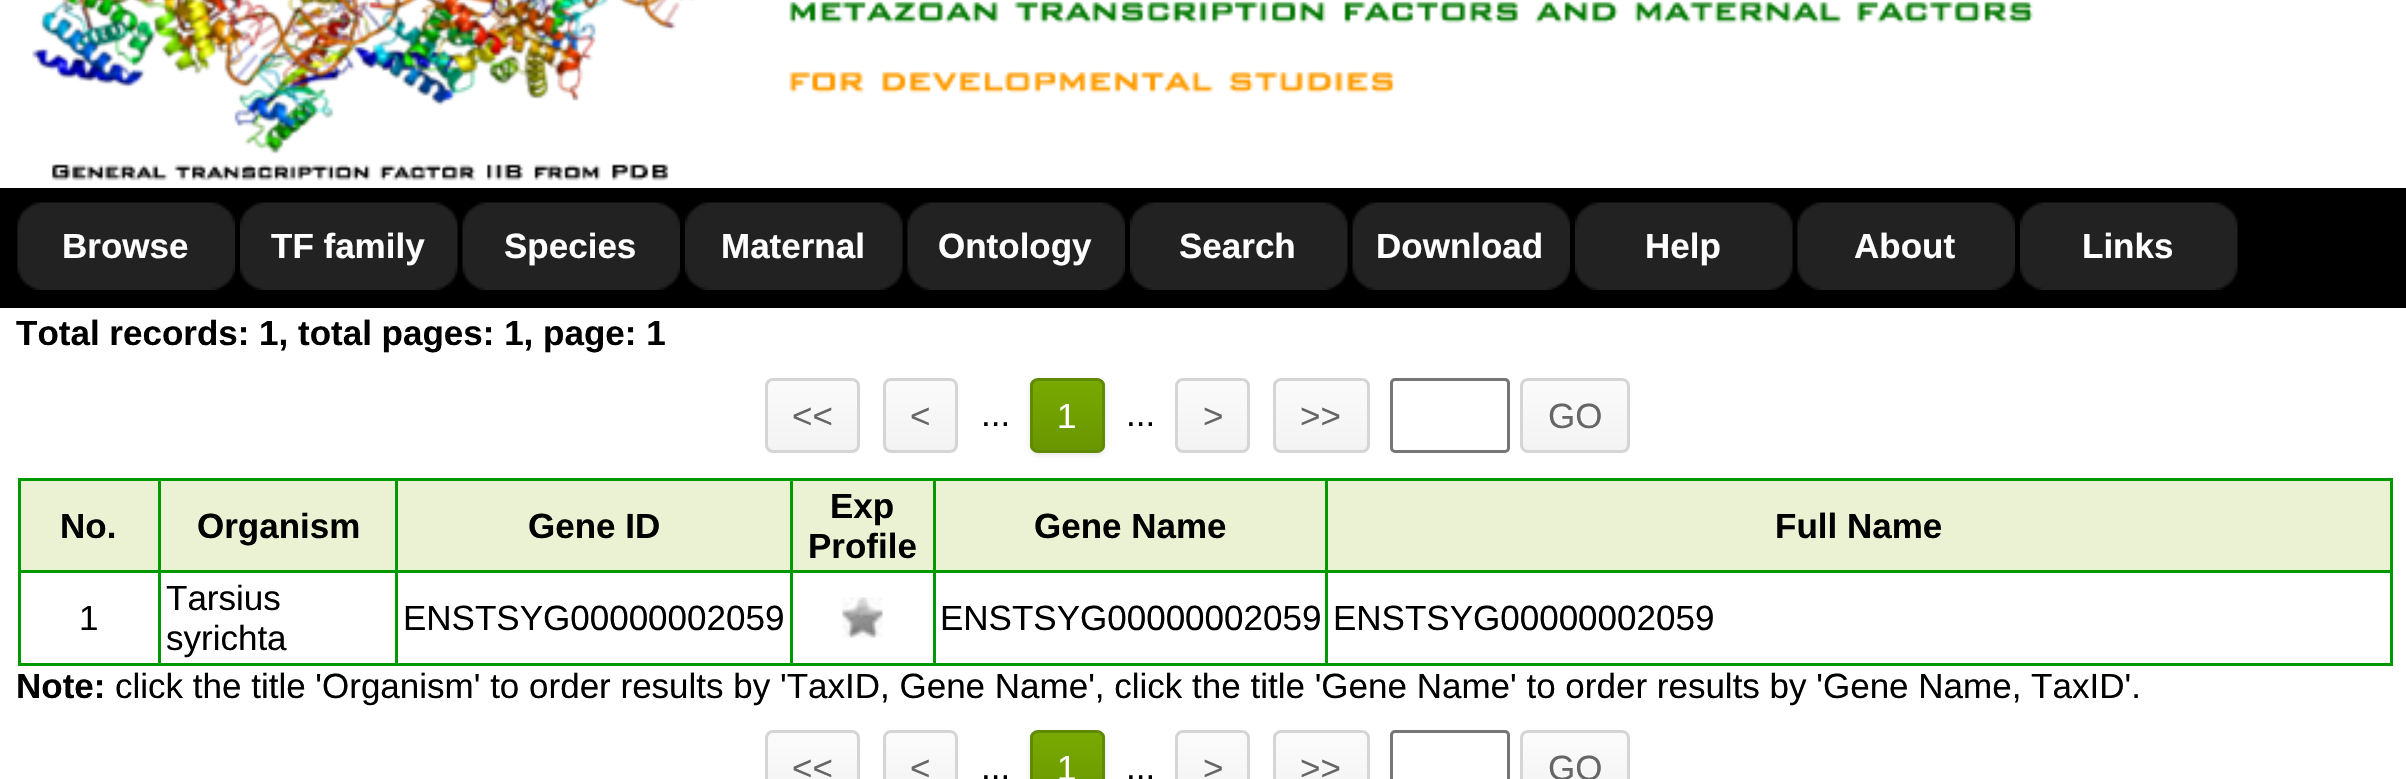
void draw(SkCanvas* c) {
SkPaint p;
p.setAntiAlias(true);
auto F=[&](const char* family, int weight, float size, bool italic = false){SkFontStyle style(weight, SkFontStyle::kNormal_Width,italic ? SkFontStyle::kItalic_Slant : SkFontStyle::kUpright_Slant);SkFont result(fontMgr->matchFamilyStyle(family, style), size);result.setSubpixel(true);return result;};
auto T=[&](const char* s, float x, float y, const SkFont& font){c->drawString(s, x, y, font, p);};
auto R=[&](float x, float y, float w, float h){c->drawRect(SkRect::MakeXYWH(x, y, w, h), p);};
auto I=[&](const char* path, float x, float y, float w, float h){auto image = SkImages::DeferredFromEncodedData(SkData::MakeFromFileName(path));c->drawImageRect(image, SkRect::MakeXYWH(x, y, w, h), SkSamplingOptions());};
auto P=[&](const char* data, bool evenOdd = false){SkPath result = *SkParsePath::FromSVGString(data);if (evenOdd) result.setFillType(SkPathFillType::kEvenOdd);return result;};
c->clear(0xffffffff);
I("1.png",32,0,2002,181);
p.setColor(0xff000000);
R(0,188,2406,120);
I("2.png",17,202,218,88);
auto f1 = F("Liberation Sans",700,35);
p.setColor(0xffffffff);
T("Browse",62,258,f1);
I("3.png",240,202,218,88);
T("TF family",271,258,f1);
I("4.png",462,202,218,88);
T("Species",504,258,f1);
I("5.png",685,202,218,88);
T("Maternal",721,258,f1);
I("2.png",907,202,218,88);
T("Ontology",938,258,f1);
I("5.png",1130,202,218,88);
T("Search",1179,258,f1);
I("4.png",1352,202,218,88);
T("Download",1376,258,f1);
I("6.png",1575,202,218,88);
T("Help",1645,258,f1);
I("7.png",1797,202,218,88);
T("About",1854,258,f1);
I("8.png",2020,202,218,88);
T("Links",2082,258,f1);
p.setColor(0xff000000);
T("Total records: 1, total pages: 1, page: 1",16,345,f1);
c->save();
c->clipPath(P("M773 378h79c4.5 0 8 3.5 8 8v59c0 4.5-3.5 8-8 8h-79c-4.5 0-8-3.5-8-8v-59c0-4.5 3.5-8 8-8z"),true);
{
const SkColor colors[] = {0xfffbfbfb,0xfff3f3f3};
const float stops[] = {0,1};
const SkPoint ends[] = {{813,380}, {813,450}};
p.setShader(SkGradientShader::MakeLinear(ends, colors, stops, 2, SkTileMode::kClamp));
p.setAlpha(255);
}
R(765,380,95,70);
c->restore();
p.setStroke(true);
p.setStrokeWidth(3);
p.setShader(nullptr);
p.setColor(0xffd5d5d5);
c->drawRoundRect(SkRect::MakeXYWH(766.5,379.5,92,72),6.5,6.5,p);
auto f2 = F("Liberation Sans",400,35);
p.setStroke(false);
p.setColor(0xff666666);
T("<<",792,428,f2);
c->save();
c->clipPath(P("M891 378h59c4.5 0 8 3.5 8 8v59c0 4.5-3.5 8-8 8h-59c-4.5 0-8-3.5-8-8v-59c0-4.5 3.5-8 8-8z"),true);
{
const SkColor colors[] = {0xfffbfbfb,0xfff3f3f3};
const float stops[] = {0,1};
const SkPoint ends[] = {{920,380}, {920,450}};
p.setShader(SkGradientShader::MakeLinear(ends, colors, stops, 2, SkTileMode::kClamp));
p.setAlpha(255);
}
R(883,380,75,70);
c->restore();
p.setStroke(true);
p.setShader(nullptr);
p.setColor(0xffd5d5d5);
c->drawRoundRect(SkRect::MakeXYWH(884.5,379.5,72,72),6.5,6.5,p);
p.setStroke(false);
p.setColor(0xff666666);
T("<",910,428,f2);
p.setColor(0xff000000);
T("...",981,426,f2);
p.setColor(0x1a000000);
p.setMaskFilter(SkMaskFilter::MakeBlur(kNormal_SkBlurStyle, 2.5));
c->drawRoundRect(SkRect::MakeXYWH(1030,380,75,75),8,8,p);
p.setMaskFilter(nullptr);
c->save();
c->clipPath(P("M1038 378h59c4.5 0 8 3.5 8 8v59c0 4.5-3.5 8-8 8h-59c-4.5 0-8-3.5-8-8v-59c0-4.5 3.5-8 8-8z"),true);
{
const SkColor colors[] = {0xff77aa00,0xff699600};
const float stops[] = {0,1};
const SkPoint ends[] = {{1068,380}, {1068,450}};
p.setShader(SkGradientShader::MakeLinear(ends, colors, stops, 2, SkTileMode::kClamp));
p.setAlpha(255);
}
R(1030,380,75,70);
c->restore();
p.setStroke(true);
p.setShader(nullptr);
p.setColor(0xff608a00);
c->drawRoundRect(SkRect::MakeXYWH(1031.5,379.5,72,72),6.5,6.5,p);
p.setStroke(false);
p.setColor(0xffffffff);
T("1",1057,428,f2);
p.setColor(0xff000000);
T("...",1126,426,f2);
c->save();
c->clipPath(P("M1183 378h59c4.5 0 8 3.5 8 8v59c0 4.5-3.5 8-8 8h-59c-4.5 0-8-3.5-8-8v-59c0-4.5 3.5-8 8-8z"),true);
{
const SkColor colors[] = {0xfffbfbfb,0xfff3f3f3};
const float stops[] = {0,1};
const SkPoint ends[] = {{1213,380}, {1213,450}};
p.setShader(SkGradientShader::MakeLinear(ends, colors, stops, 2, SkTileMode::kClamp));
p.setAlpha(255);
}
R(1175,380,75,70);
c->restore();
p.setStroke(true);
p.setShader(nullptr);
p.setColor(0xffd5d5d5);
c->drawRoundRect(SkRect::MakeXYWH(1176.5,379.5,72,72),6.5,6.5,p);
p.setStroke(false);
p.setColor(0xff666666);
T(">",1203,428,f2);
c->save();
c->clipPath(P("M1281 378h81c4.5 0 8 3.5 8 8v59c0 4.5-3.5 8-8 8h-81c-4.5 0-8-3.5-8-8v-59c0-4.5 3.5-8 8-8z"),true);
{
const SkColor colors[] = {0xfffbfbfb,0xfff3f3f3};
const float stops[] = {0,1};
const SkPoint ends[] = {{1321,380}, {1321,450}};
p.setShader(SkGradientShader::MakeLinear(ends, colors, stops, 2, SkTileMode::kClamp));
p.setAlpha(255);
}
R(1273,380,97,70);
c->restore();
p.setStroke(true);
p.setShader(nullptr);
p.setColor(0xffd5d5d5);
c->drawRoundRect(SkRect::MakeXYWH(1274.5,379.5,94,72),6.5,6.5,p);
p.setStroke(false);
p.setColor(0xff666666);
T(">>",1300,428,f2);
p.setStroke(true);
p.setColor(0xff767676);
c->drawRoundRect(SkRect::MakeXYWH(1391.5,379.5,117,72),3.5,3.5,p);
c->save();
c->clipPath(P("M1528 378h94c4.5 0 8 3.5 8 8v59c0 4.5-3.5 8-8 8h-94c-4.5 0-8-3.5-8-8v-59c0-4.5 3.5-8 8-8z"),true);
p.setStroke(false);
{
const SkColor colors[] = {0xfffbfbfb,0xfff3f3f3};
const float stops[] = {0,1};
const SkPoint ends[] = {{1575,380}, {1575,450}};
p.setShader(SkGradientShader::MakeLinear(ends, colors, stops, 2, SkTileMode::kClamp));
p.setAlpha(255);
}
R(1520,380,110,70);
c->restore();
p.setStroke(true);
p.setShader(nullptr);
p.setColor(0xffd5d5d5);
c->drawRoundRect(SkRect::MakeXYWH(1521.5,379.5,107,72),6.5,6.5,p);
p.setStroke(false);
p.setColor(0xff666666);
T("GO",1548,428,f2);
p.setColor(0xff009900);
R(18,478,2375,3);
R(2390,478,3,187);
R(18,663,2375,3);
R(18,478,3,187);
p.setColor(0xffeaf2d3);
R(21,481,137,89);
p.setColor(0xff000000);
T("No.",60,538,f1);
p.setColor(0xffeaf2d3);
R(161,481,234,89);
p.setColor(0xff009900);
R(1325,570,1068,3);
R(1325,570,3,95);
R(933,570,395,3);
R(933,570,3,95);
R(790,570,145,3);
R(790,570,3,95);
R(395,570,398,3);
R(395,570,3,95);
R(158,570,240,3);
R(158,570,3,95);
R(18,570,142,3);
R(158,478,3,95);
p.setColor(0xff000000);
T("Organism",197,538,f1);
p.setColor(0xffeaf2d3);
R(398,481,392,89);
p.setColor(0xff009900);
R(395,478,3,95);
p.setColor(0xff000000);
T("Gene ID",528,538,f1);
p.setColor(0xffeaf2d3);
R(793,481,140,89);
p.setColor(0xff009900);
R(790,478,3,95);
p.setColor(0xff000000);
T("Exp",830,518,f1);
T("Profile",808,558,f1);
p.setColor(0xffeaf2d3);
R(936,481,389,89);
p.setColor(0xff009900);
R(933,478,3,95);
p.setColor(0xff000000);
T("Gene Name",1034,538,f1);
p.setColor(0xffeaf2d3);
R(1328,481,1062,89);
p.setColor(0xff009900);
R(1325,478,3,95);
p.setColor(0xff000000);
T("Full Name",1775,538,f1);
T("1",79,630,f2);
T("Tarsius",166,610,f2);
T("syrichta",166,650,f2);
T("ENSTSYG00000002059",403,630,f2);
I("9.png",842,597,41,41);
T("ENSTSYG00000002059",940,630,f2);
T("ENSTSYG00000002059",1333,630,f2);
T("Note:",16,698,f1);
T("click the title 'Organism' to order results by 'TaxID, Gene Name', click the title 'Gene Name' to order results by 'Gene Name, TaxID'.",115,698,f2);
c->save();
c->clipPath(P("M773 730h79c4.5 0 8 3.5 8 8v59c0 4.5-3.5 8-8 8h-79c-4.5 0-8-3.5-8-8v-59c0-4.5 3.5-8 8-8z"),true);
{
const SkColor colors[] = {0xfffbfbfb,0xfff3f3f3};
const float stops[] = {0,1};
const SkPoint ends[] = {{813,733}, {813,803}};
p.setShader(SkGradientShader::MakeLinear(ends, colors, stops, 2, SkTileMode::kClamp));
p.setAlpha(255);
}
R(765,733,95,46);
c->restore();
p.setStroke(true);
p.setShader(nullptr);
p.setColor(0xffd5d5d5);
c->drawRoundRect(SkRect::MakeXYWH(766.5,731.5,92,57),6.5,6.5,p);
p.setStroke(false);
p.setColor(0xff666666);
T("<<",792,780,f2);
c->save();
c->clipPath(P("M891 730h59c4.5 0 8 3.5 8 8v59c0 4.5-3.5 8-8 8h-59c-4.5 0-8-3.5-8-8v-59c0-4.5 3.5-8 8-8z"),true);
{
const SkColor colors[] = {0xfffbfbfb,0xfff3f3f3};
const float stops[] = {0,1};
const SkPoint ends[] = {{920,733}, {920,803}};
p.setShader(SkGradientShader::MakeLinear(ends, colors, stops, 2, SkTileMode::kClamp));
p.setAlpha(255);
}
R(883,733,75,46);
c->restore();
p.setStroke(true);
p.setShader(nullptr);
p.setColor(0xffd5d5d5);
c->drawRoundRect(SkRect::MakeXYWH(884.5,731.5,72,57),6.5,6.5,p);
p.setStroke(false);
p.setColor(0xff666666);
T("<",910,780,f2);
p.setColor(0xff000000);
T("...",981,779,f2);
p.setColor(0x1a000000);
p.setMaskFilter(SkMaskFilter::MakeBlur(kNormal_SkBlurStyle, 2.5));
c->drawRoundRect(SkRect::MakeXYWH(1030,733,75,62),8,8,p);
p.setMaskFilter(nullptr);
c->save();
c->clipPath(P("M1038 730h59c4.5 0 8 3.5 8 8v59c0 4.5-3.5 8-8 8h-59c-4.5 0-8-3.5-8-8v-59c0-4.5 3.5-8 8-8z"),true);
{
const SkColor colors[] = {0xff77aa00,0xff699600};
const float stops[] = {0,1};
const SkPoint ends[] = {{1068,733}, {1068,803}};
p.setShader(SkGradientShader::MakeLinear(ends, colors, stops, 2, SkTileMode::kClamp));
p.setAlpha(255);
}
R(1030,733,75,46);
c->restore();
p.setStroke(true);
p.setShader(nullptr);
p.setColor(0xff608a00);
c->drawRoundRect(SkRect::MakeXYWH(1031.5,731.5,72,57),6.5,6.5,p);
p.setStroke(false);
p.setColor(0xffffffff);
T("1",1057,780,f2);
p.setColor(0xff000000);
T("...",1126,779,f2);
c->save();
c->clipPath(P("M1183 730h59c4.5 0 8 3.5 8 8v59c0 4.5-3.5 8-8 8h-59c-4.5 0-8-3.5-8-8v-59c0-4.5 3.5-8 8-8z"),true);
{
const SkColor colors[] = {0xfffbfbfb,0xfff3f3f3};
const float stops[] = {0,1};
const SkPoint ends[] = {{1213,733}, {1213,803}};
p.setShader(SkGradientShader::MakeLinear(ends, colors, stops, 2, SkTileMode::kClamp));
p.setAlpha(255);
}
R(1175,733,75,46);
c->restore();
p.setStroke(true);
p.setShader(nullptr);
p.setColor(0xffd5d5d5);
c->drawRoundRect(SkRect::MakeXYWH(1176.5,731.5,72,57),6.5,6.5,p);
p.setStroke(false);
p.setColor(0xff666666);
T(">",1203,780,f2);
c->save();
c->clipPath(P("M1281 730h81c4.5 0 8 3.5 8 8v59c0 4.5-3.5 8-8 8h-81c-4.5 0-8-3.5-8-8v-59c0-4.5 3.5-8 8-8z"),true);
{
const SkColor colors[] = {0xfffbfbfb,0xfff3f3f3};
const float stops[] = {0,1};
const SkPoint ends[] = {{1321,733}, {1321,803}};
p.setShader(SkGradientShader::MakeLinear(ends, colors, stops, 2, SkTileMode::kClamp));
p.setAlpha(255);
}
R(1273,733,97,46);
c->restore();
p.setStroke(true);
p.setShader(nullptr);
p.setColor(0xffd5d5d5);
c->drawRoundRect(SkRect::MakeXYWH(1274.5,731.5,94,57),6.5,6.5,p);
p.setStroke(false);
p.setColor(0xff666666);
T(">>",1300,780,f2);
p.setStroke(true);
p.setColor(0xff767676);
c->drawRoundRect(SkRect::MakeXYWH(1391.5,731.5,117,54),3.5,3.5,p);
c->save();
c->clipPath(P("M1528 730h94c4.5 0 8 3.5 8 8v59c0 4.5-3.5 8-8 8h-94c-4.5 0-8-3.5-8-8v-59c0-4.5 3.5-8 8-8z"),true);
p.setStroke(false);
{
const SkColor colors[] = {0xfffbfbfb,0xfff3f3f3};
const float stops[] = {0,1};
const SkPoint ends[] = {{1575,733}, {1575,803}};
p.setShader(SkGradientShader::MakeLinear(ends, colors, stops, 2, SkTileMode::kClamp));
p.setAlpha(255);
}
R(1520,733,110,46);
c->restore();
p.setStroke(true);
p.setShader(nullptr);
p.setColor(0xffd5d5d5);
c->drawRoundRect(SkRect::MakeXYWH(1521.5,731.5,107,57),6.5,6.5,p);
p.setStroke(false);
p.setColor(0xff666666);
T("GO",1548,780,f2);
}
